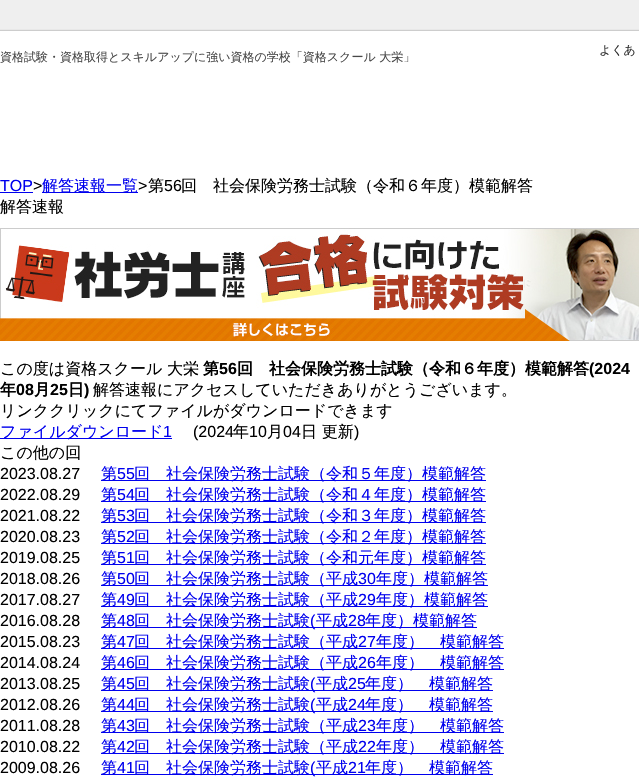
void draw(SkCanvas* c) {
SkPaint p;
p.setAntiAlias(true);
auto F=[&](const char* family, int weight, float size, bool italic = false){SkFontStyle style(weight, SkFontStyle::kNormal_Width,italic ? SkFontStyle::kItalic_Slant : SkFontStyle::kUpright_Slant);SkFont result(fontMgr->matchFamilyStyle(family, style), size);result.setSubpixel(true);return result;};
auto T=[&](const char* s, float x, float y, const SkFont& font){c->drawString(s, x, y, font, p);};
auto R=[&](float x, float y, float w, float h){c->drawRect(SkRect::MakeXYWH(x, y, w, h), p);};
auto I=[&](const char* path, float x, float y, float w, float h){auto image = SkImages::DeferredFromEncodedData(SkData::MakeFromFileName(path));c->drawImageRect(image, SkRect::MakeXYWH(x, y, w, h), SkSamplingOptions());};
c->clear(0xffffffff);
I("1.png",0,0,639,31);
auto f1 = F("WenQuanYi Zen Hei",500,12);
p.setColor(0xff484848);
T("資格試験・資格取得とスキルアップに強い資格の学校「資格スクール 大栄」",0,61,f1);
p.setColor(0xff2c2c2c);
T("よくあ",599,54,f1);
auto f2 = F("Liberation Sans",400,16);
p.setColor(0xff0000ee);
T("TOP",0,191,f2);
R(0,192,33,1);
p.setColor(0xff000000);
T(">",33,191,f2);
p.setColor(0xff0000ee);
R(42,192,96,1);
auto f3 = F("WenQuanYi Zen Hei",500,16);
T("解答速報一覧",42,191,f3);
p.setColor(0xff000000);
T(">",138,191,f2);
T("第",148,191,f3);
T("56",164,191,f2);
T("回　社会保険労務士試験（令和６年度）模範解答",181,191,f3);
T("解答速報",0,212,f3);
I("2.png",0,228,639,113);
T("この度は資格スクール 大栄",0,374,f3);
auto f4 = F("WenQuanYi Zen Hei",700,16);
T("第",203,374,f4);
auto f5 = F("Liberation Sans",700,16);
T("56",219,374,f5);
T("回　社会保険労務士試験（令和６年度）模範解答",237,374,f4);
T("(2024",589,374,f5);
T("年",0,395,f4);
T("08",16,395,f5);
T("月",34,395,f4);
T("25",50,395,f5);
T("日",68,395,f4);
T(")",84,395,f5);
T("解答速報にアクセスしていただきありがとうございます。",93,395,f3);
T("リンククリックにてファイルがダウンロードできます",0,416,f3);
p.setColor(0xff0000ee);
R(0,438,172,1);
T("ファイルダウンロード",0,437,f3);
T("1",163,437,f2);
p.setColor(0xff000000);
T("(2024",193,437,f2);
T("年",233,437,f3);
T("10",249,437,f2);
T("月",267,437,f3);
T("04",283,437,f2);
T("日 更新",301,437,f3);
T(")",354,437,f2);
T("この他の回",0,458,f3);
T("2023.08.27",0,479,f2);
p.setColor(0xff0000ee);
R(101,480,385,1);
T("第",101,479,f3);
T("55",117,479,f2);
T("回　社会保険労務士試験（令和５年度）模範解答",134,479,f3);
p.setColor(0xff000000);
T("2022.08.29",0,500,f2);
p.setColor(0xff0000ee);
R(101,501,385,1);
T("第",101,500,f3);
T("54",117,500,f2);
T("回　社会保険労務士試験（令和４年度）模範解答",134,500,f3);
p.setColor(0xff000000);
T("2021.08.22",0,521,f2);
p.setColor(0xff0000ee);
R(101,522,385,1);
T("第",101,521,f3);
T("53",117,521,f2);
T("回　社会保険労務士試験（令和３年度）模範解答",134,521,f3);
p.setColor(0xff000000);
T("2020.08.23",0,542,f2);
p.setColor(0xff0000ee);
R(101,543,385,1);
T("第",101,542,f3);
T("52",117,542,f2);
T("回　社会保険労務士試験（令和２年度）模範解答",134,542,f3);
p.setColor(0xff000000);
T("2019.08.25",0,563,f2);
p.setColor(0xff0000ee);
R(101,564,385,1);
T("第",101,563,f3);
T("51",117,563,f2);
T("回　社会保険労務士試験（令和元年度）模範解答",134,563,f3);
p.setColor(0xff000000);
T("2018.08.26",0,584,f2);
p.setColor(0xff0000ee);
R(101,585,387,1);
T("第",101,584,f3);
T("50",117,584,f2);
T("回　社会保険労務士試験（平成",134,584,f3);
T("30",358,584,f2);
T("年度）模範解答",376,584,f3);
p.setColor(0xff000000);
T("2017.08.27",0,605,f2);
p.setColor(0xff0000ee);
R(101,606,387,1);
T("第",101,605,f3);
T("49",117,605,f2);
T("回　社会保険労務士試験（平成",134,605,f3);
T("29",358,605,f2);
T("年度）模範解答",376,605,f3);
p.setColor(0xff000000);
T("2016.08.28",0,626,f2);
p.setColor(0xff0000ee);
R(101,627,376,1);
T("第",101,626,f3);
T("48",117,626,f2);
T("回　社会保険労務士試験",134,626,f3);
T("(",310,626,f2);
T("平成",316,626,f3);
T("28",348,626,f2);
T("年度）模範解答",365,626,f3);
p.setColor(0xff000000);
T("2015.08.23",0,647,f2);
p.setColor(0xff0000ee);
R(101,648,403,1);
T("第",101,647,f3);
T("47",117,647,f2);
T("回　社会保険労務士試験（平成",134,647,f3);
T("27",358,647,f2);
T("年度）　模範解答",376,647,f3);
p.setColor(0xff000000);
T("2014.08.24",0,668,f2);
p.setColor(0xff0000ee);
R(101,669,403,1);
T("第",101,668,f3);
T("46",117,668,f2);
T("回　社会保険労務士試験（平成",134,668,f3);
T("26",358,668,f2);
T("年度）　模範解答",376,668,f3);
p.setColor(0xff000000);
T("2013.08.25",0,689,f2);
p.setColor(0xff0000ee);
R(101,690,392,1);
T("第",101,689,f3);
T("45",117,689,f2);
T("回　社会保険労務士試験",134,689,f3);
T("(",310,689,f2);
T("平成",316,689,f3);
T("25",348,689,f2);
T("年度）　模範解答",365,689,f3);
p.setColor(0xff000000);
T("2012.08.26",0,710,f2);
p.setColor(0xff0000ee);
R(101,711,392,1);
T("第",101,710,f3);
T("44",117,710,f2);
T("回　社会保険労務士試験",134,710,f3);
T("(",310,710,f2);
T("平成",316,710,f3);
T("24",348,710,f2);
T("年度）　模範解答",365,710,f3);
p.setColor(0xff000000);
T("2011.08.28",0,731,f2);
p.setColor(0xff0000ee);
R(101,732,403,1);
T("第",101,731,f3);
T("43",117,731,f2);
T("回　社会保険労務士試験（平成",134,731,f3);
T("23",358,731,f2);
T("年度）　模範解答",376,731,f3);
p.setColor(0xff000000);
T("2010.08.22",0,752,f2);
p.setColor(0xff0000ee);
R(101,753,403,1);
T("第",101,752,f3);
T("42",117,752,f2);
T("回　社会保険労務士試験（平成",134,752,f3);
T("22",358,752,f2);
T("年度）　模範解答",376,752,f3);
p.setColor(0xff000000);
T("2009.08.26",0,773,f2);
p.setColor(0xff0000ee);
R(101,774,392,1);
T("第",101,773,f3);
T("41",117,773,f2);
T("回　社会保険労務士試験",134,773,f3);
T("(",310,773,f2);
T("平成",316,773,f3);
T("21",348,773,f2);
T("年度）　模範解答",365,773,f3);
}
